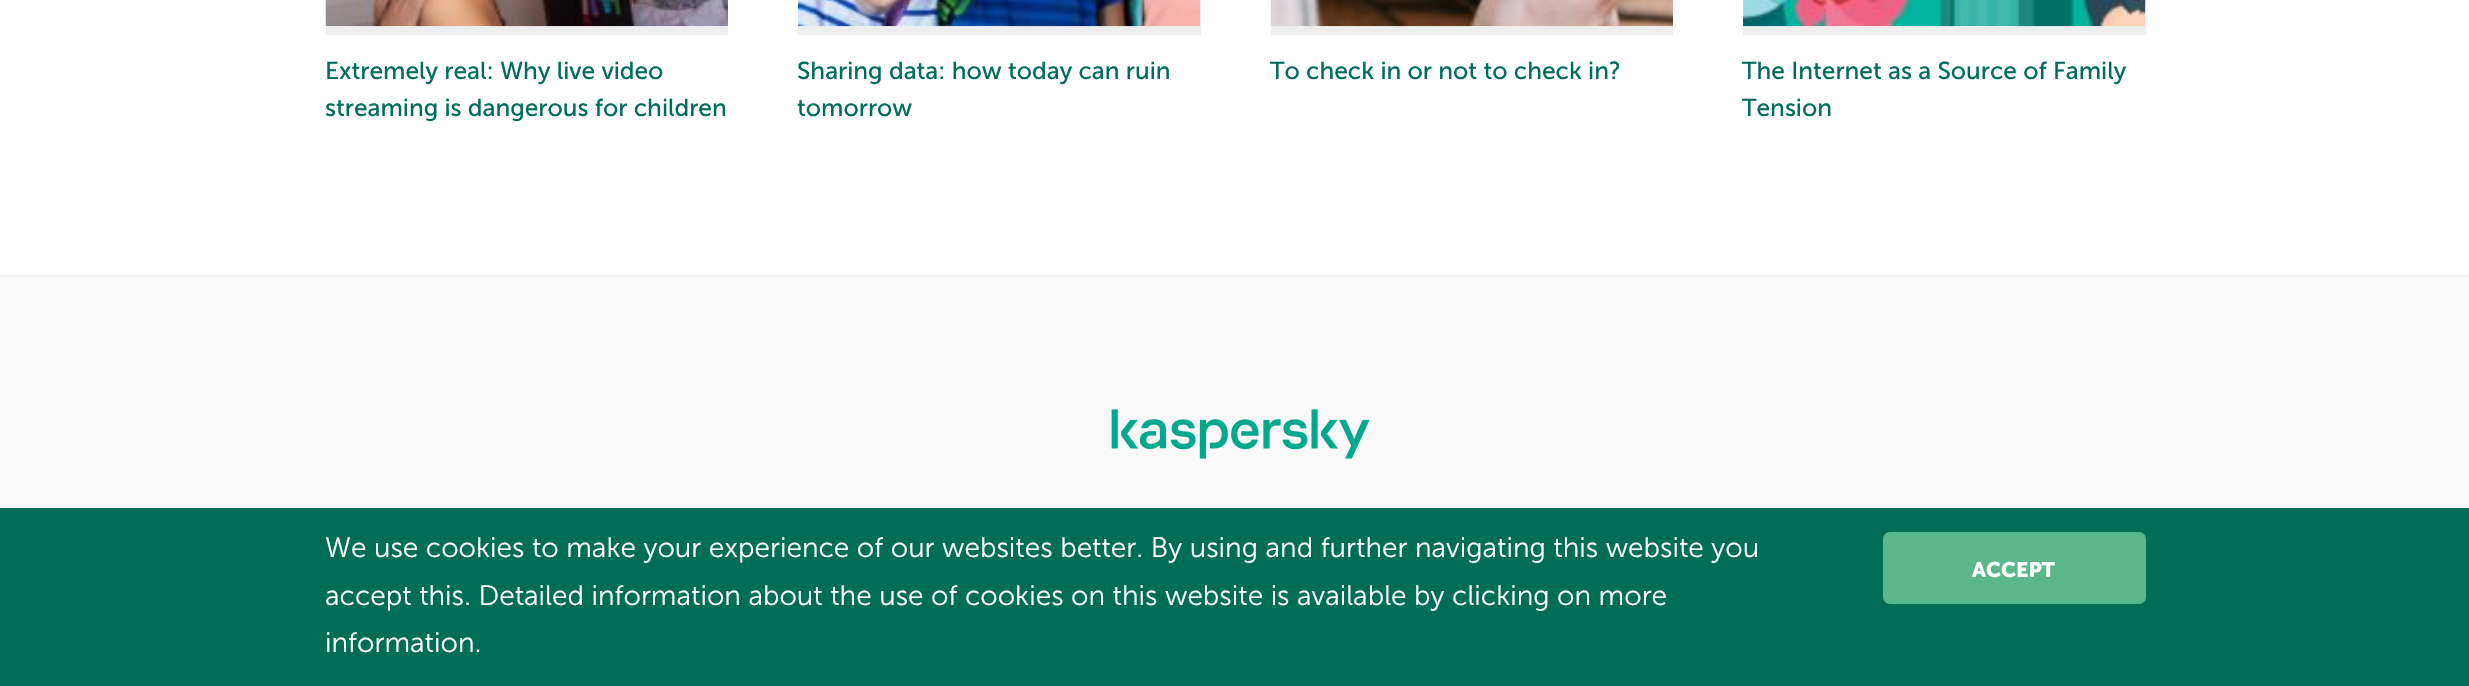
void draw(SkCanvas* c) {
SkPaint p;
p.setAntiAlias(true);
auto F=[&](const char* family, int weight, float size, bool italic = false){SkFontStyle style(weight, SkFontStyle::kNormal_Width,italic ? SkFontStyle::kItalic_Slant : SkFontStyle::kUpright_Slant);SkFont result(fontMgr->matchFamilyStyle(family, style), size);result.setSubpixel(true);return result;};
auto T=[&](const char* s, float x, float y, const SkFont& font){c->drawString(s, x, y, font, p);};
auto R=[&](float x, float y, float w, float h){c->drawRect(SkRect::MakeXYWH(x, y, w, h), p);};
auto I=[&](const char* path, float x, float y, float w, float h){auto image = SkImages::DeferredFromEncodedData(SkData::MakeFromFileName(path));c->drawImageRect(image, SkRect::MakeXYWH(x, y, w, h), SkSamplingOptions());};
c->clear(0xffffffff);
p.setColor(0xffeeeeee);
R(326,26,402,9);
I("1.png",325,0,403,27);
auto f1 = F("Museo Sans",500,24.5);
p.setColor(0xff006d5c);
T("Extremely real: Why live video",325,79,f1);
T("streaming is dangerous for children",325,116,f1);
p.setColor(0xffeeeeee);
R(798,26,403,9);
I("2.png",798,0,403,27);
p.setColor(0xff006d5c);
T("Sharing data: how today can ruin",797,79,f1);
T("tomorrow",797,116,f1);
p.setColor(0xffeeeeee);
R(1271,26,402,9);
I("3.png",1270,0,403,27);
p.setColor(0xff006d5c);
T("To check in or not to check in?",1270,79,f1);
p.setColor(0xffeeeeee);
R(1743,26,403,9);
I("4.png",1743,0,403,27);
p.setColor(0xff006d5c);
T("The Internet as a Source of Family",1742,79,f1);
T("Tension",1742,116,f1);
p.setColor(0xfff9f9f9);
R(0,277,2469,231);
p.setColor(0xffeeeeee);
R(0,275,2469,2);
I("5.png",1111,409,259,50);
p.setColor(0xff006d55);
R(0,508,2469,178);
auto f2 = F("Museo Sans",300,28);
p.setColor(0xffffffff);
T("We use cookies to make your experience of our websites better. By using and further navigating this website you",325,557,f2);
T("accept this. Detailed information about the use of cookies on this website is available by clicking on more",325,605,f2);
T("information.",325,652,f2);
p.setColor(0xff5ab789);
c->drawRoundRect(SkRect::MakeXYWH(1885,534,259,68),5,5,p);
p.setStroke(true);
p.setStrokeWidth(4);
c->drawRoundRect(SkRect::MakeXYWH(1885,534,259,68),5,5,p);
auto f3 = F("Museo Sans",900,21);
p.setStroke(false);
p.setColor(0xffffffff);
T("ACCEPT",1972,577,f3);
}
